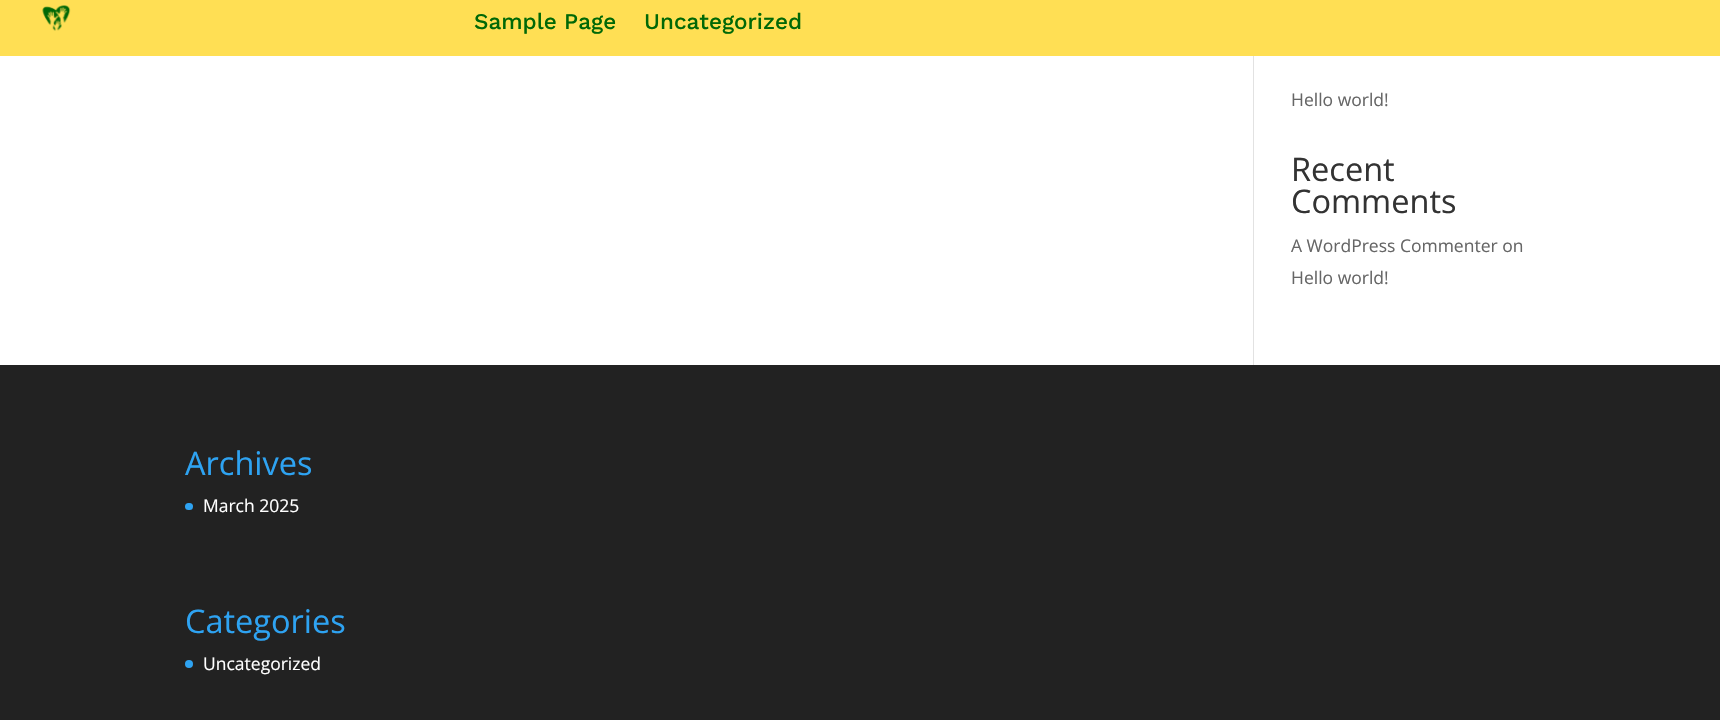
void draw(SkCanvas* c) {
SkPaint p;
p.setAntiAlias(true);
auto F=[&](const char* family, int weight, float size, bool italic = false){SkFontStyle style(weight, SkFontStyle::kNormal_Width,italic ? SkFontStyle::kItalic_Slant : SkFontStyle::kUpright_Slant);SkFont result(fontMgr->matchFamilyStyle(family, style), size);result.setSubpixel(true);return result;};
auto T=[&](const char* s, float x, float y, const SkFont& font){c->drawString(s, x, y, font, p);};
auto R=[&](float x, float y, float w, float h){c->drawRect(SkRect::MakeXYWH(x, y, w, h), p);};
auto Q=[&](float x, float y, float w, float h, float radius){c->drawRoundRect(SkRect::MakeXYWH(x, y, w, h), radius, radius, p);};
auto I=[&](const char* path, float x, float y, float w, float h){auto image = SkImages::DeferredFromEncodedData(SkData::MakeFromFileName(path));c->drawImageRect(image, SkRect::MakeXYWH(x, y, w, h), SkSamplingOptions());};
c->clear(0xffffffff);
p.setColor(0xffffdf54);
R(0,0,1720,56);
I("1.png",42,5,29,26);
auto f1 = F("Work Sans",500,22.5);
p.setColor(0xff006806);
T("Sample Page",474,29,f1);
T("Uncategorized",644,29,f1);
p.setColor(0xffe2e2e2);
R(1253,56,1,309);
auto f2 = F("Open Sans",400,17.5);
p.setColor(0xff666666);
T("Hello world!",1291,106,f2);
auto f3 = F("Open Sans",400,32.5);
p.setColor(0xff333333);
T("Recent",1291,181,f3);
T("Comments",1291,213,f3);
p.setColor(0xff666666);
T("A WordPress Commenter on",1291,252,f2);
T("Hello world!",1291,284,f2);
p.setColor(0xff222222);
R(0,365,1720,355);
p.setColor(0xff2ea3f2);
T("Archives",185,475,f3);
Q(185,503,8,7,3.5);
p.setColor(0xffffffff);
T("March 2025",203,512,f2);
p.setColor(0xff2ea3f2);
T("Categories",185,633,f3);
c->drawCircle(189,664,4,p);
p.setColor(0xffffffff);
T("Uncategorized",203,670,f2);
}
